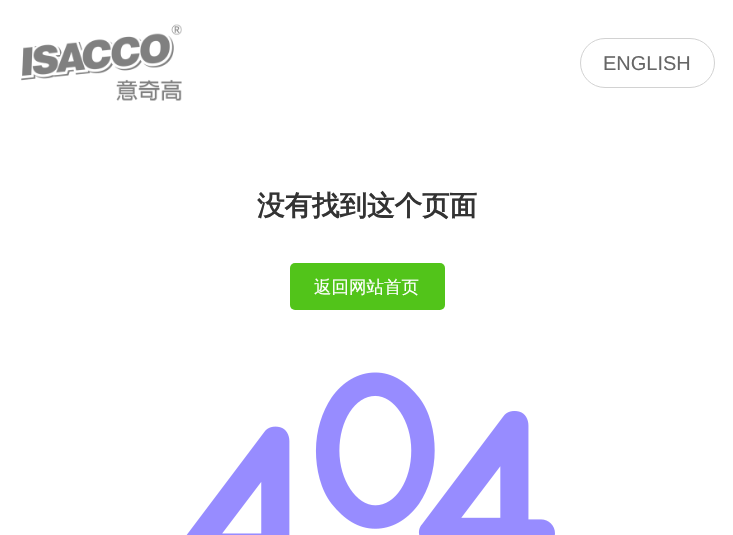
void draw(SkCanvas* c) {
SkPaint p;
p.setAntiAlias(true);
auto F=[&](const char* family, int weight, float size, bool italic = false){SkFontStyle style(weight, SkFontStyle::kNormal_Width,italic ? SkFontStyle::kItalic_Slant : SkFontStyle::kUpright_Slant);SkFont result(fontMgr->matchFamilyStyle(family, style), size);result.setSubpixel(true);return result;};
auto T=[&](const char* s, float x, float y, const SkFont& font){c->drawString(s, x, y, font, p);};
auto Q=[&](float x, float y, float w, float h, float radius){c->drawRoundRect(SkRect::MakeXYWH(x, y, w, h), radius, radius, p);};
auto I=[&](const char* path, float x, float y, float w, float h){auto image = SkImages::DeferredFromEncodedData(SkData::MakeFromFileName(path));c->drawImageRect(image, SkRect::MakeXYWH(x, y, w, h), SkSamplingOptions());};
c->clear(0xffffffff);
I("1.png",21,24,161,77);
p.setStroke(true);
p.setStrokeWidth(1);
p.setColor(0xffd2d2d2);
c->drawRoundRect(SkRect::MakeXYWH(580.5,38.5,134,49),24.5,24.5,p);
auto f1 = F("Liberation Sans",400,20);
p.setStroke(false);
p.setColor(0xff666666);
T("ENGLISH",603,70,f1);
auto f2 = F("WenQuanYi Zen Hei",700,27.5);
p.setColor(0xff333333);
T("没有找到这个页面",257,215,f2);
p.setColor(0xff52c41a);
Q(290,263,155,47,5);
auto f3 = F("WenQuanYi Zen Hei",500,17.5);
p.setColor(0xffffffff);
T("返回网站首页",314,293,f3);
I("2.png",186,372,369,163);
}
